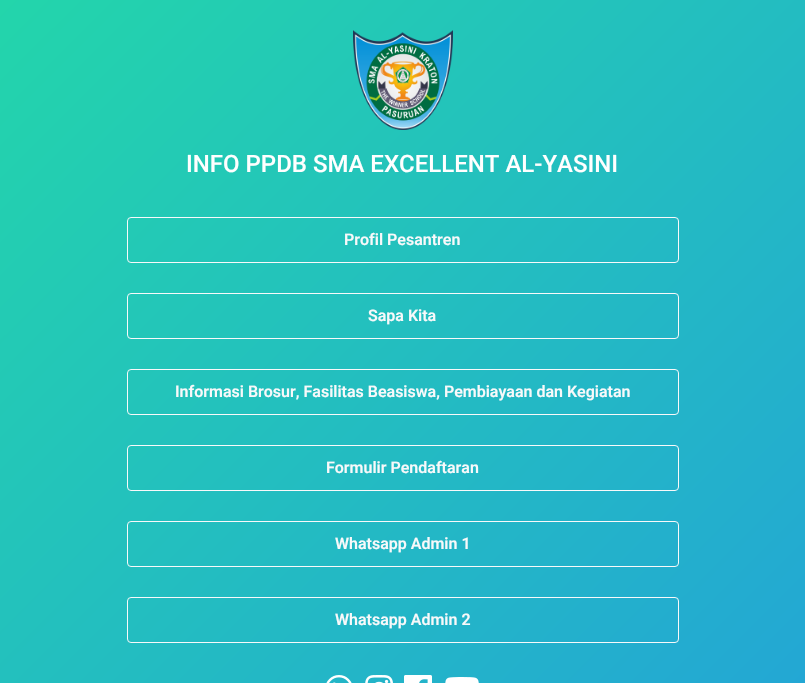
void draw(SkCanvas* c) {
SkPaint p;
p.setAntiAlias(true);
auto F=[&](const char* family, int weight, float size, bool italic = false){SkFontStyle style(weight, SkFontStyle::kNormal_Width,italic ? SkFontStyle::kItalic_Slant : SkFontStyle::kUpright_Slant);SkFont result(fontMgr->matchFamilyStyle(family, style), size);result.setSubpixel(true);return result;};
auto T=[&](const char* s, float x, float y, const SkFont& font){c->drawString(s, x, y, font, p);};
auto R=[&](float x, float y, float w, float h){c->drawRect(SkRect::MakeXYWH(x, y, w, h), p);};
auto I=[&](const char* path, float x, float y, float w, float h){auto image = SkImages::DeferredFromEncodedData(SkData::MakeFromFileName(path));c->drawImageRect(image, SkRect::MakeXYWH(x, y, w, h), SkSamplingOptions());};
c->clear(0xffffffff);
{
const SkColor colors[] = {0xff23a6d5,0xff23d5ab};
const float stops[] = {0,1};
const SkPoint ends[] = {{783,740}, {22,-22}};
p.setShader(SkGradientShader::MakeLinear(ends, colors, stops, 2, SkTileMode::kClamp));
p.setAlpha(255);
}
R(0,0,805,683);
I("1.png",353,30,100,100);
auto f1 = F("Roboto",500,24);
p.setShader(nullptr);
p.setColor(0xffffffff);
T("INFO PPDB SMA EXCELLENT AL-YASINI",186,172,f1);
p.setStroke(true);
p.setStrokeWidth(1);
p.setColor(0xfff8f9fa);
c->drawRoundRect(SkRect::MakeXYWH(127.5,217.5,551,45),3.5,3.5,p);
auto f2 = F("Roboto",600,16);
p.setStroke(false);
T("Profil Pesantren",344,245,f2);
p.setStroke(true);
c->drawRoundRect(SkRect::MakeXYWH(127.5,293.5,551,45),3.5,3.5,p);
p.setStroke(false);
T("Sapa Kita",368,321,f2);
p.setStroke(true);
c->drawRoundRect(SkRect::MakeXYWH(127.5,369.5,551,45),3.5,3.5,p);
p.setStroke(false);
T("Informasi Brosur, Fasilitas Beasiswa, Pembiayaan dan Kegiatan",175,397,f2);
p.setStroke(true);
c->drawRoundRect(SkRect::MakeXYWH(127.5,445.5,551,45),3.5,3.5,p);
p.setStroke(false);
T("Formulir Pendaftaran",326,473,f2);
p.setStroke(true);
c->drawRoundRect(SkRect::MakeXYWH(127.5,521.5,551,45),3.5,3.5,p);
p.setStroke(false);
T("Whatsapp Admin 1",335,549,f2);
p.setStroke(true);
c->drawRoundRect(SkRect::MakeXYWH(127.5,597.5,551,45),3.5,3.5,p);
p.setStroke(false);
T("Whatsapp Admin 2",335,625,f2);
I("2.png",326,675,26,8);
I("3.png",365,675,28,8);
I("4.png",404,675,28,8);
I("5.png",445,677,34,6);
}
